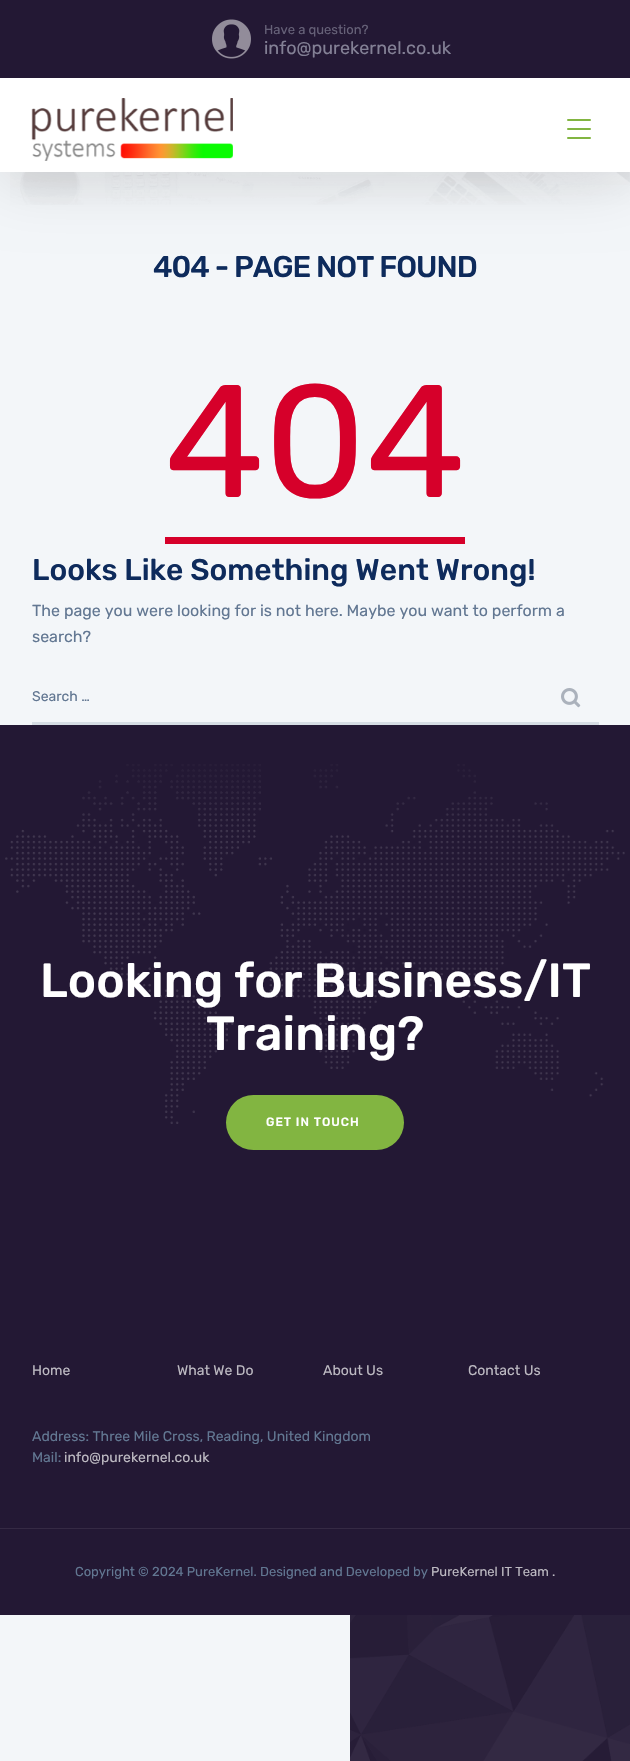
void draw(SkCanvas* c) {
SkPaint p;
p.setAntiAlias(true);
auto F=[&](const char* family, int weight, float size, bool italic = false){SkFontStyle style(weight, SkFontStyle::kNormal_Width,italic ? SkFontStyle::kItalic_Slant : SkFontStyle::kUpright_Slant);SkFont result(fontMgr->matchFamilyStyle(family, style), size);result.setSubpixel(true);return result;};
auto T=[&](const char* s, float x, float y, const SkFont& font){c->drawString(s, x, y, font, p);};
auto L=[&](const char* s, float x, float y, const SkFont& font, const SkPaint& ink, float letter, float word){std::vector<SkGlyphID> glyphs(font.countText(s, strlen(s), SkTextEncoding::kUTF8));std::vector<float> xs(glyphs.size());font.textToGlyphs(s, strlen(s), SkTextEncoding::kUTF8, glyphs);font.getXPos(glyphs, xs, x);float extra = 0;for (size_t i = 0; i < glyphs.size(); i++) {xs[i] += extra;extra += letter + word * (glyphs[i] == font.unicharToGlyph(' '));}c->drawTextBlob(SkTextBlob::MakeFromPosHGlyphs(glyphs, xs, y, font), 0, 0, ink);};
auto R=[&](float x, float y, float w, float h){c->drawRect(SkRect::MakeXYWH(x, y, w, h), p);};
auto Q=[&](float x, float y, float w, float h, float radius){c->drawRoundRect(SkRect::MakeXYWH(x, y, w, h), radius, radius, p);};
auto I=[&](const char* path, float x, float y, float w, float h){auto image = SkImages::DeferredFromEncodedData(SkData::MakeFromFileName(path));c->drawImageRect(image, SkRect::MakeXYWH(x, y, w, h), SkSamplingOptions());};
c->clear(0xfff3f6f9);
I("3.png",10,172,620,33);
p.setColor(0x1f000000);
p.setMaskFilter(SkMaskFilter::MakeBlur(kNormal_SkBlurStyle, 30));
c->drawRect(SkRect::MakeXYWH(0,88,630,94),p);
p.setMaskFilter(nullptr);
p.setColor(0xffffffff);
R(0,78,630,94);
I("1.png",31,98,202,63);
p.setColor(0xff82b541);
Q(567,119,24,2,1);
Q(567,137,24,2,1);
Q(567,128,24,2,1);
p.setColor(0xff231834);
R(0,0,630,78);
I("2.png",212,19,39,40);
auto f1 = F("Rubik",400,13);
p.setColor(0xff666178);
T("Have a question?",264,34,f1);
auto f2 = F("Rubik",400,18);
p.setColor(0xff838095);
T("info@purekernel.co.uk",264,54,f2);
auto f3 = F("Rubik",500,30);
p.setColor(0xff0e2b5c);
L("404 - PAGE NOT FOUND",153,277,f3,p,-1,0);
auto f4 = F("Rubik",400,160);
p.setColor(0xffd6002a);
T("404",165,497,f4);
R(165,537,300,7);
p.setColor(0xff0e2b5c);
T("Looks Like Something Went Wrong!",32,580,f3);
auto f5 = F("Rubik",400,16);
p.setColor(0xff627792);
T("The page you were looking for is not here. Maybe you want to perform a",32,616,f5);
T("search?",32,642,f5);
p.setColor(0xffd6dde4);
R(32,722,567,3);
auto f6 = F("Rubik",400,14);
p.setColor(0xff627792);
T("Search …",32,701,f6);
I("4.png",561,688,20,20);
p.setColor(0xff231834);
R(0,725,630,890);
I("5.png",5,764,620,360);
auto f7 = F("Rubik",500,48);
p.setColor(0xffffffff);
T("Looking for Business/IT",40,997,f7);
T("Training?",206,1050,f7);
p.setColor(0xff82b541);
Q(226,1095,178,55,27.5);
auto f8 = F("Rubik",500,12);
p.setColor(0xffffffff);
L("GET IN TOUCH",266,1126,f8,p,1,0);
p.setColor(0xffbdbac2);
T("Home",32,1375,f6);
T("What We Do",177,1375,f6);
T("About Us",323,1375,f6);
T("Contact Us",468,1375,f6);
p.setColor(0xff627792);
T("Address: Three Mile Cross, Reading, United Kingdom",32,1441,f6);
T("Mail:",32,1462,f6);
p.setColor(0xffbdbac2);
T("info@purekernel.co.uk",64,1462,f6);
p.setColor(0xff352a44);
R(0,1528,630,1);
p.setColor(0xff627792);
T("Copyright © 2024 PureKernel. Designed and Developed by",75,1576,f1);
p.setColor(0xffbdbac2);
T("PureKernel IT Team .",431,1576,f1);
p.setColor(0xff231834);
R(350,1615,280,146);
I("6.png",350,1615,280,146);
}
